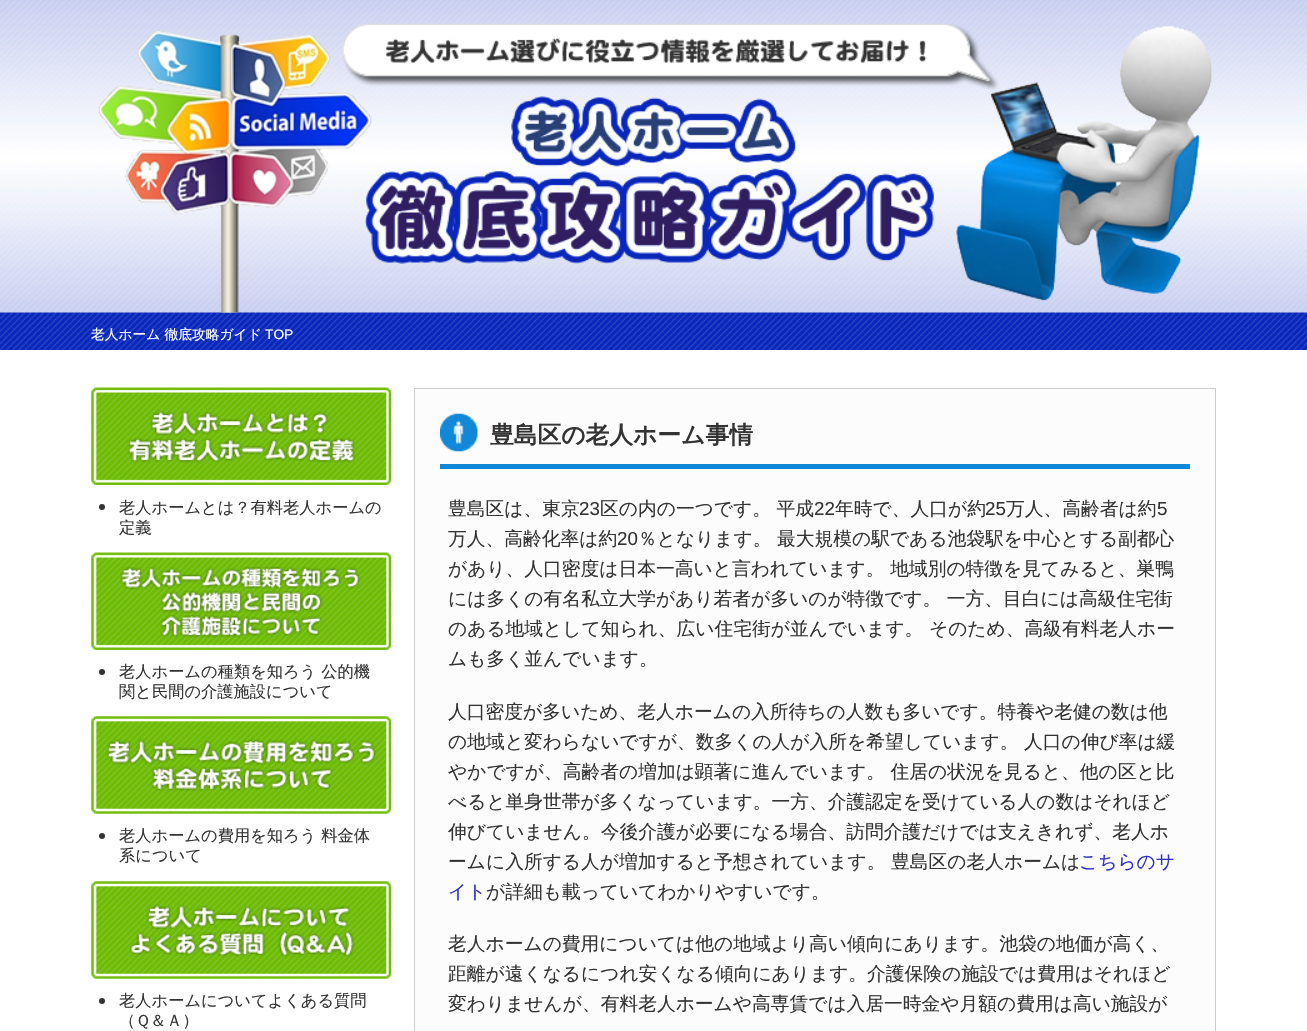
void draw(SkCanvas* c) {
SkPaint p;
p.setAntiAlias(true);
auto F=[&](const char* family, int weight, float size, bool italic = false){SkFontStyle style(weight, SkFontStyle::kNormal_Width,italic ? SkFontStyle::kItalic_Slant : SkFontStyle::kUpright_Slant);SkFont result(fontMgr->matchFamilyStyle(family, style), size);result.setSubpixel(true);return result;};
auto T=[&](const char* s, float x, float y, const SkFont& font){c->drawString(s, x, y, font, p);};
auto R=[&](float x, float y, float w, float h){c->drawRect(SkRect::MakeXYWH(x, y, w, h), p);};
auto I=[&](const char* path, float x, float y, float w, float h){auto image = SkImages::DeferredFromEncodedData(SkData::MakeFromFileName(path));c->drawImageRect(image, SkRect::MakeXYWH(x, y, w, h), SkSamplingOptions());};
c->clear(0xffffffff);
I("1.png",0,0,1307,350);
I("2.png",98,23,1114,290);
auto f1 = F("WenQuanYi Zen Hei",500,13.75);
p.setColor(0xffffffff);
T("老人ホーム 徹底攻略ガイド",91,339,f1);
auto f2 = F("Liberation Sans",400,13.75);
T("TOP",265,339,f2);
I("3.png",91,387,301,98);
p.setColor(0xff333333);
c->drawCircle(102,507,3,p);
auto f3 = F("WenQuanYi Zen Hei",500,16.25);
T("老人ホームとは？有料老人ホームの",119,513,f3);
T("定義",119,533,f3);
I("4.png",91,552,301,98);
c->drawCircle(102,672,3,p);
T("老人ホームの種類を知ろう 公的機",119,677,f3);
T("関と民間の介護施設について",119,697,f3);
I("5.png",91,716,301,98);
c->drawCircle(102,836,3,p);
T("老人ホームの費用を知ろう 料金体",119,841,f3);
T("系について",119,861,f3);
I("6.png",91,881,301,98);
c->drawCircle(102,1001,3,p);
T("老人ホームについてよくある質問",119,1006,f3);
T("（Ｑ＆Ａ）",119,1026,f3);
p.setColor(0xfffcfcfc);
c->drawRect(SkRect::MakeXYWH(414.5,388.5,801,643),p);
p.setStroke(true);
p.setStrokeWidth(1);
p.setColor(0xffcccccc);
c->drawRect(SkRect::MakeXYWH(414.5,388.5,801,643),p);
I("7.png",440,413,38,39);
p.setStroke(false);
p.setColor(0xff1188d7);
R(440,464,750,5);
auto f4 = F("WenQuanYi Zen Hei",700,23.75);
p.setColor(0xff333333);
T("豊島区の老人ホーム事情",490,443,f4);
auto f5 = F("WenQuanYi Zen Hei",500,18.75);
T("豊島区は、東京",448,515,f5);
auto f6 = F("Liberation Sans",400,18.75);
T("23",579,515,f6);
T("区の内の一つです。 平成",600,515,f5);
T("22",814,515,f6);
T("年時で、人口が約",835,515,f5);
T("25",985,515,f6);
T("万人、高齢者は約",1006,515,f5);
T("5",1157,515,f6);
T("万人、高齢化率は約",448,545,f5);
T("20",617,545,f6);
T("％となります。 最大規模の駅である池袋駅を中心とする副都心",638,545,f5);
T("があり、人口密度は日本一高いと言われています。 地域別の特徴を見てみると、巣鴨",448,575,f5);
T("には多くの有名私立大学があり若者が多いのが特徴です。 一方、目白には高級住宅街",448,605,f5);
T("のある地域として知られ、広い住宅街が並んでいます。 そのため、高級有料老人ホー",448,635,f5);
T("ムも多く並んでいます。",448,665,f5);
T("人口密度が多いため、老人ホームの入所待ちの人数も多いです。特養や老健の数は他",448,718,f5);
T("の地域と変わらないですが、数多くの人が入所を希望しています。 人口の伸び率は緩",448,748,f5);
T("やかですが、高齢者の増加は顕著に進んでいます。 住居の状況を見ると、他の区と比",448,778,f5);
T("べると単身世帯が多くなっています。一方、介護認定を受けている人の数はそれほど",448,808,f5);
T("伸びていません。今後介護が必要になる場合、訪問介護だけでは支えきれず、老人ホ",448,838,f5);
T("ームに入所する人が増加すると予想されています。 豊島区の老人ホームは",448,868,f5);
p.setColor(0xff3030c1);
T("こちらのサ",1079,868,f5);
T("イト",448,898,f5);
p.setColor(0xff333333);
T("が詳細も載っていてわかりやすいです。",486,898,f5);
T("老人ホームの費用については他の地域より高い傾向にあります。池袋の地価が高く、",448,950,f5);
T("距離が遠くなるにつれ安くなる傾向にあります。介護保険の施設では費用はそれほど",448,980,f5);
T("変わりませんが、有料老人ホームや高専賃では入居一時金や月額の費用は高い施設が",448,1010,f5);
}
